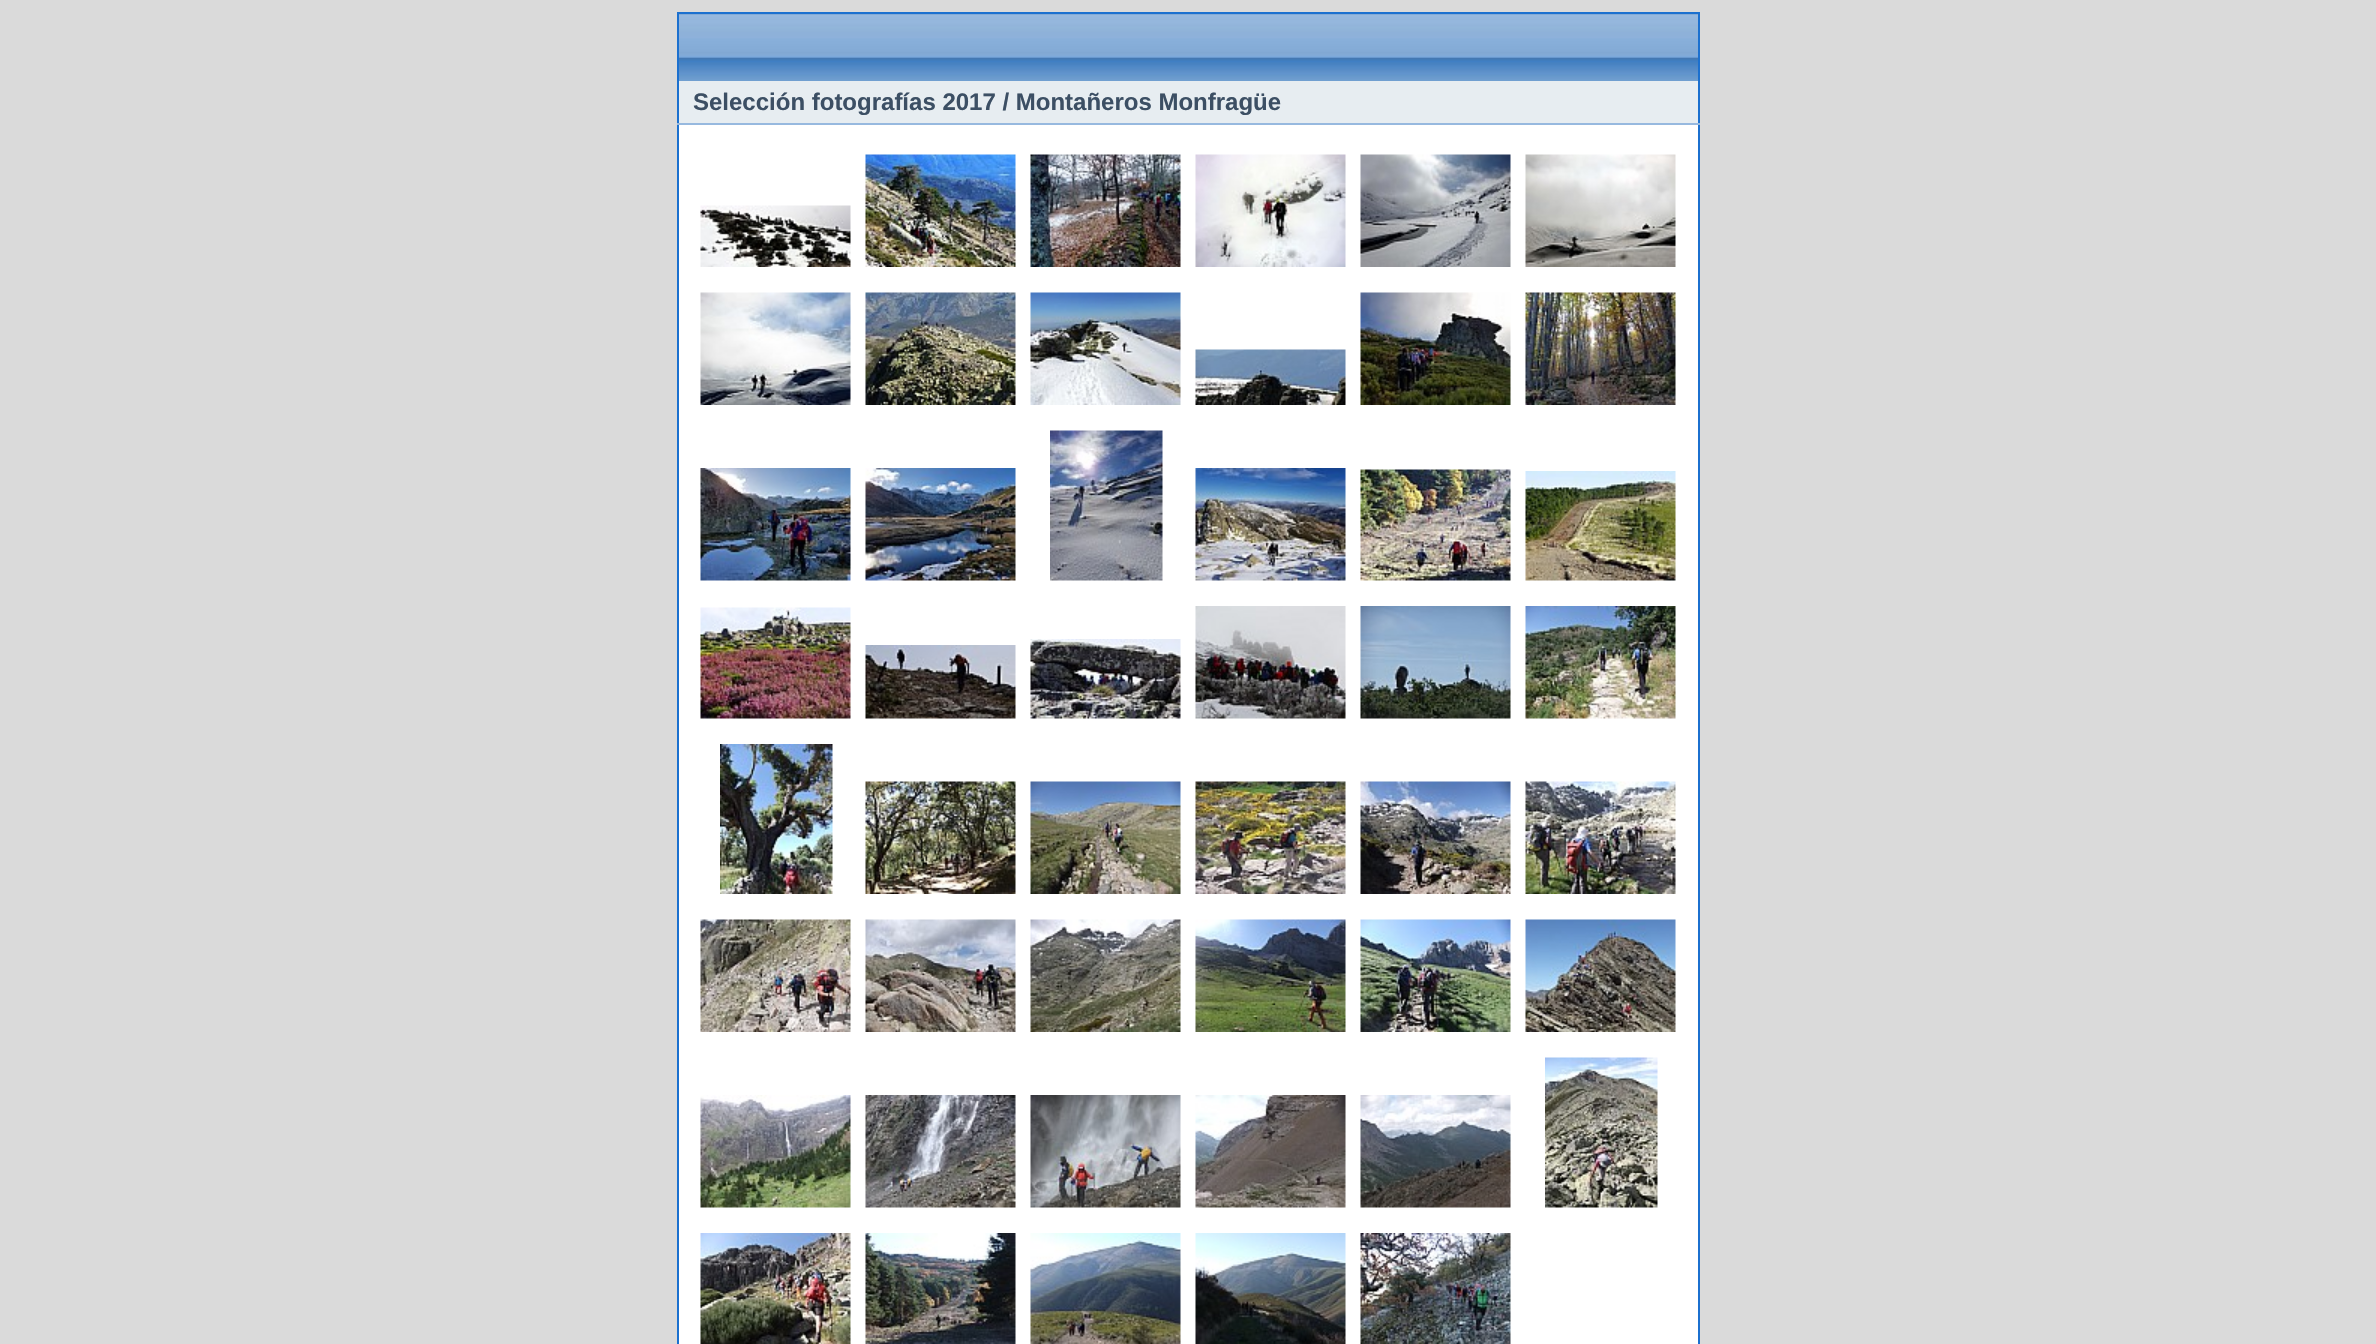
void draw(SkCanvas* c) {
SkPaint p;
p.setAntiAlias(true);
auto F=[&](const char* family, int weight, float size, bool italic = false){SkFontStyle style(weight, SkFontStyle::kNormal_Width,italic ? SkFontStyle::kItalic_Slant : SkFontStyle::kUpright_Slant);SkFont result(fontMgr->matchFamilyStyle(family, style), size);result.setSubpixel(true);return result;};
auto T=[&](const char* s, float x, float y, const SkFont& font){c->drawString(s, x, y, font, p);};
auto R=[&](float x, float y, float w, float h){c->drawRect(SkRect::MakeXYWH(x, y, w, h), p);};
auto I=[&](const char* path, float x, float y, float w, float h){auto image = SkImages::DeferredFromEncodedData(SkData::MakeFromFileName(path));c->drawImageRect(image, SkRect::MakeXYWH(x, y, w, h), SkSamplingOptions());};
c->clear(0xffdadada);
p.setColor(0xffffffff);
R(679,125,1019,1219);
p.setColor(0xff1b70cf);
R(677,12,1023,2);
R(1698,12,2,1332);
R(677,12,2,1332);
I("1.png",679,14,1019,67);
p.setColor(0xffe7edf1);
R(679,81,1019,42);
p.setColor(0xff97b9df);
R(677,123,1023,2);
auto f1 = F("Liberation Sans",700,24);
p.setColor(0xff3c4f64);
T("Selección fotografías 2017 / Montañeros Monfragüe",693,110,f1);
I("2.png",700,205,151,62);
I("3.png",865,154,151,113);
I("4.png",1030,154,151,113);
I("5.png",1195,154,151,113);
I("6.png",1360,154,151,113);
I("7.png",1525,154,151,113);
I("8.png",700,292,151,113);
I("9.png",865,292,151,113);
I("10.png",1030,292,151,113);
I("11.png",1195,349,151,56);
I("12.png",1360,292,151,113);
I("13.png",1525,292,151,113);
I("14.png",700,468,151,113);
I("15.png",865,468,151,113);
I("16.png",1050,430,113,151);
I("17.png",1195,468,151,113);
I("18.png",1360,469,151,112);
I("19.png",1525,471,151,110);
I("20.png",700,607,151,112);
I("21.png",865,645,151,74);
I("22.png",1030,639,151,80);
I("23.png",1195,606,151,113);
I("24.png",1360,606,151,113);
I("25.png",1525,606,151,113);
I("26.png",720,744,113,150);
I("27.png",865,781,151,113);
I("28.png",1030,781,151,113);
I("29.png",1195,781,151,113);
I("30.png",1360,781,151,113);
I("31.png",1525,781,151,113);
I("32.png",700,919,151,113);
I("33.png",865,919,151,113);
I("34.png",1030,919,151,113);
I("35.png",1195,919,151,113);
I("36.png",1360,919,151,113);
I("37.png",1525,919,151,113);
I("38.png",700,1095,151,113);
I("39.png",865,1095,151,113);
I("40.png",1030,1095,151,113);
I("41.png",1195,1095,151,113);
I("42.png",1360,1095,151,113);
I("43.png",1545,1057,113,151);
I("44.png",700,1233,151,111);
I("45.png",865,1233,151,111);
I("46.png",1030,1233,151,111);
I("47.png",1195,1233,151,111);
I("48.png",1360,1233,151,111);
}
